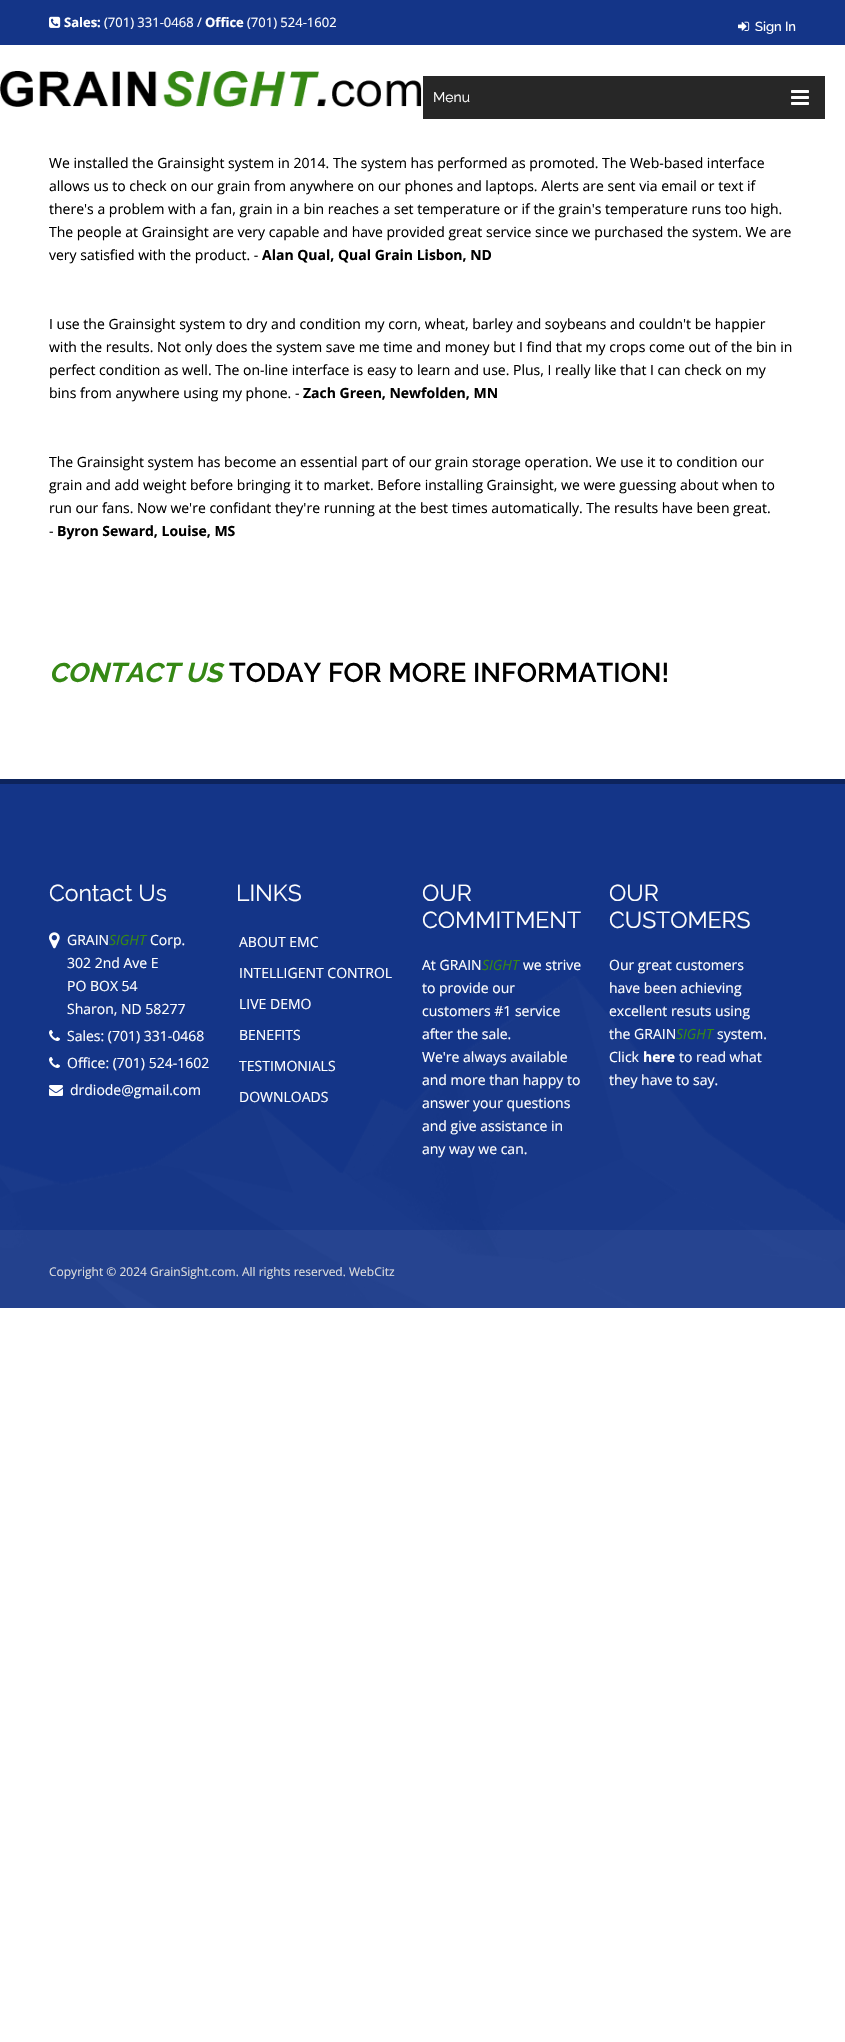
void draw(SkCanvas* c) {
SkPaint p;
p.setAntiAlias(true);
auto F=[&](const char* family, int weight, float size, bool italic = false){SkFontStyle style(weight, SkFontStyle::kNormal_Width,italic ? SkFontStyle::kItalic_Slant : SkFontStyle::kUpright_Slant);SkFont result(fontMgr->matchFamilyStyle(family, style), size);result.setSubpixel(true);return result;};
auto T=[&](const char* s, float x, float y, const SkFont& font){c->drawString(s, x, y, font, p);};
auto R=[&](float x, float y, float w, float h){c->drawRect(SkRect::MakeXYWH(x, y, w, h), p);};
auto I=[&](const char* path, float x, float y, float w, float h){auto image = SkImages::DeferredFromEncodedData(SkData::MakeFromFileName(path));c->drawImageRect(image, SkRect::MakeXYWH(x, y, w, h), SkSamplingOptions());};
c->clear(0xffffffff);
p.setColor(0xff143588);
R(0,0,845,45);
I("1.png",49,16,12,12);
auto f1 = F("Open Sans",700,13);
p.setColor(0xffffffff);
T("Sales:",64,27,f1);
auto f2 = F("Open Sans",400,13);
T("(701) 331-0468 /",104,27,f2);
T("Office",205,27,f1);
T("(701) 524-1602",247,27,f2);
I("2.png",738,21,12,10);
auto f3 = F("Raleway",500,13);
T("Sign In",755,31,f3);
I("3.png",0,71,422,36);
p.setColor(0xff272727);
R(423,76,402,43);
auto f4 = F("Raleway",400,14);
p.setColor(0xffffffff);
T("Menu",433,102,f4);
I("4.png",791,90,18,15);
auto f5 = F("Open Sans",400,14);
p.setColor(0xff000000);
T("We installed the Grainsight system in 2014. The system has performed as promoted. The Web-based interface",49,168,f5);
T("allows us to check on our grain from anywhere on our phones and laptops. Alerts are sent via email or text if",49,191,f5);
T("there's a problem with a fan, grain in a bin reaches a set temperature or if the grain's temperature runs too high.",49,214,f5);
T("The people at Grainsight are very capable and have provided great service since we purchased the system. We are",49,237,f5);
T("very satisfied with the product. -",49,260,f5);
auto f6 = F("Open Sans",700,14);
T("Alan Qual, Qual Grain Lisbon, ND",262,260,f6);
T("I use the Grainsight system to dry and condition my corn, wheat, barley and soybeans and couldn't be happier",49,329,f5);
T("with the results. Not only does the system save me time and money but I find that my crops come out of the bin in",49,352,f5);
T("perfect condition as well. The on-line interface is easy to learn and use. Plus, I really like that I can check on my",49,375,f5);
T("bins from anywhere using my phone. -",49,398,f5);
T("Zach Green, Newfolden, MN",303,398,f6);
T("The Grainsight system has become an essential part of our grain storage operation. We use it to condition our",49,467,f5);
T("grain and add weight before bringing it to market. Before installing Grainsight, we were guessing about when to",49,490,f5);
T("run our fans. Now we're confidant they're running at the best times automatically. The results have been great.",49,513,f5);
T("-",49,536,f5);
T("Byron Seward, Louise, MS",57,536,f6);
auto f7 = F("Raleway",700,27,true);
p.setColor(0xff358814);
T("CONTACT US",49,682,f7);
auto f8 = F("Raleway",600,27);
p.setColor(0xff000000);
T("TODAY FOR MORE INFORMATION!",229,682,f8);
p.setColor(0xff143588);
R(0,784,845,524);
I("5.png",0,976,845,332);
p.setColor(0xff0d245c);
R(0,779,845,5);
auto f9 = F("Raleway",400,23);
p.setColor(0xffffffff);
T("Contact Us",49,901,f9);
I("6.png",49,932,11,17);
T("GRAIN",67,945,f5);
auto f10 = F("Open Sans",400,14,true);
p.setColor(0xff358814);
T("SIGHT",109,945,f10);
p.setColor(0xffffffff);
T("Corp.",150,945,f5);
T("302 2nd Ave E",67,968,f5);
T("PO BOX 54",67,991,f5);
T("Sharon, ND 58277",67,1014,f5);
I("7.png",49,1030,11,11);
T("Sales: (701) 331-0468",67,1041,f5);
I("7.png",49,1057,11,11);
T("Office: (701) 524-1602",67,1068,f5);
I("8.png",49,1085,14,11);
T("drdiode@gmail.com",70,1095,f5);
T("LINKS",236,901,f9);
T("ABOUT EMC",239,947,f5);
T("INTELLIGENT CONTROL",239,978,f5);
T("LIVE DEMO",239,1009,f5);
T("BENEFITS",239,1040,f5);
T("TESTIMONIALS",239,1071,f5);
T("DOWNLOADS",239,1102,f5);
T("OUR",422,901,f9);
T("COMMITMENT",422,928,f9);
T("At GRAIN",422,970,f5);
p.setColor(0xff358814);
T("SIGHT",482,970,f10);
p.setColor(0xffffffff);
T("we strive",523,970,f5);
T("to provide our",422,993,f5);
T("customers #1 service",422,1016,f5);
T("after the sale.",422,1039,f5);
T("We're always available",422,1062,f5);
T("and more than happy to",422,1085,f5);
T("answer your questions",422,1108,f5);
T("and give assistance in",422,1131,f5);
T("any way we can.",422,1154,f5);
T("OUR",609,901,f9);
T("CUSTOMERS",609,928,f9);
T("Our great customers",609,970,f5);
T("have been achieving",609,993,f5);
T("excellent resuts using",609,1016,f5);
T("the GRAIN",609,1039,f5);
p.setColor(0xff358814);
T("SIGHT",676,1039,f10);
p.setColor(0xffffffff);
T("system.",717,1039,f5);
T("Click",609,1062,f5);
T("here",643,1062,f6);
T("to read what",679,1062,f5);
T("they have to say.",609,1085,f5);
p.setColor(0x0dffffff);
R(0,1230,845,78);
auto f11 = F("Open Sans",400,12);
p.setColor(0xffdddddd);
T("Copyright © 2024 GrainSight.com. All rights reserved. WebCitz",49,1276,f11);
}
